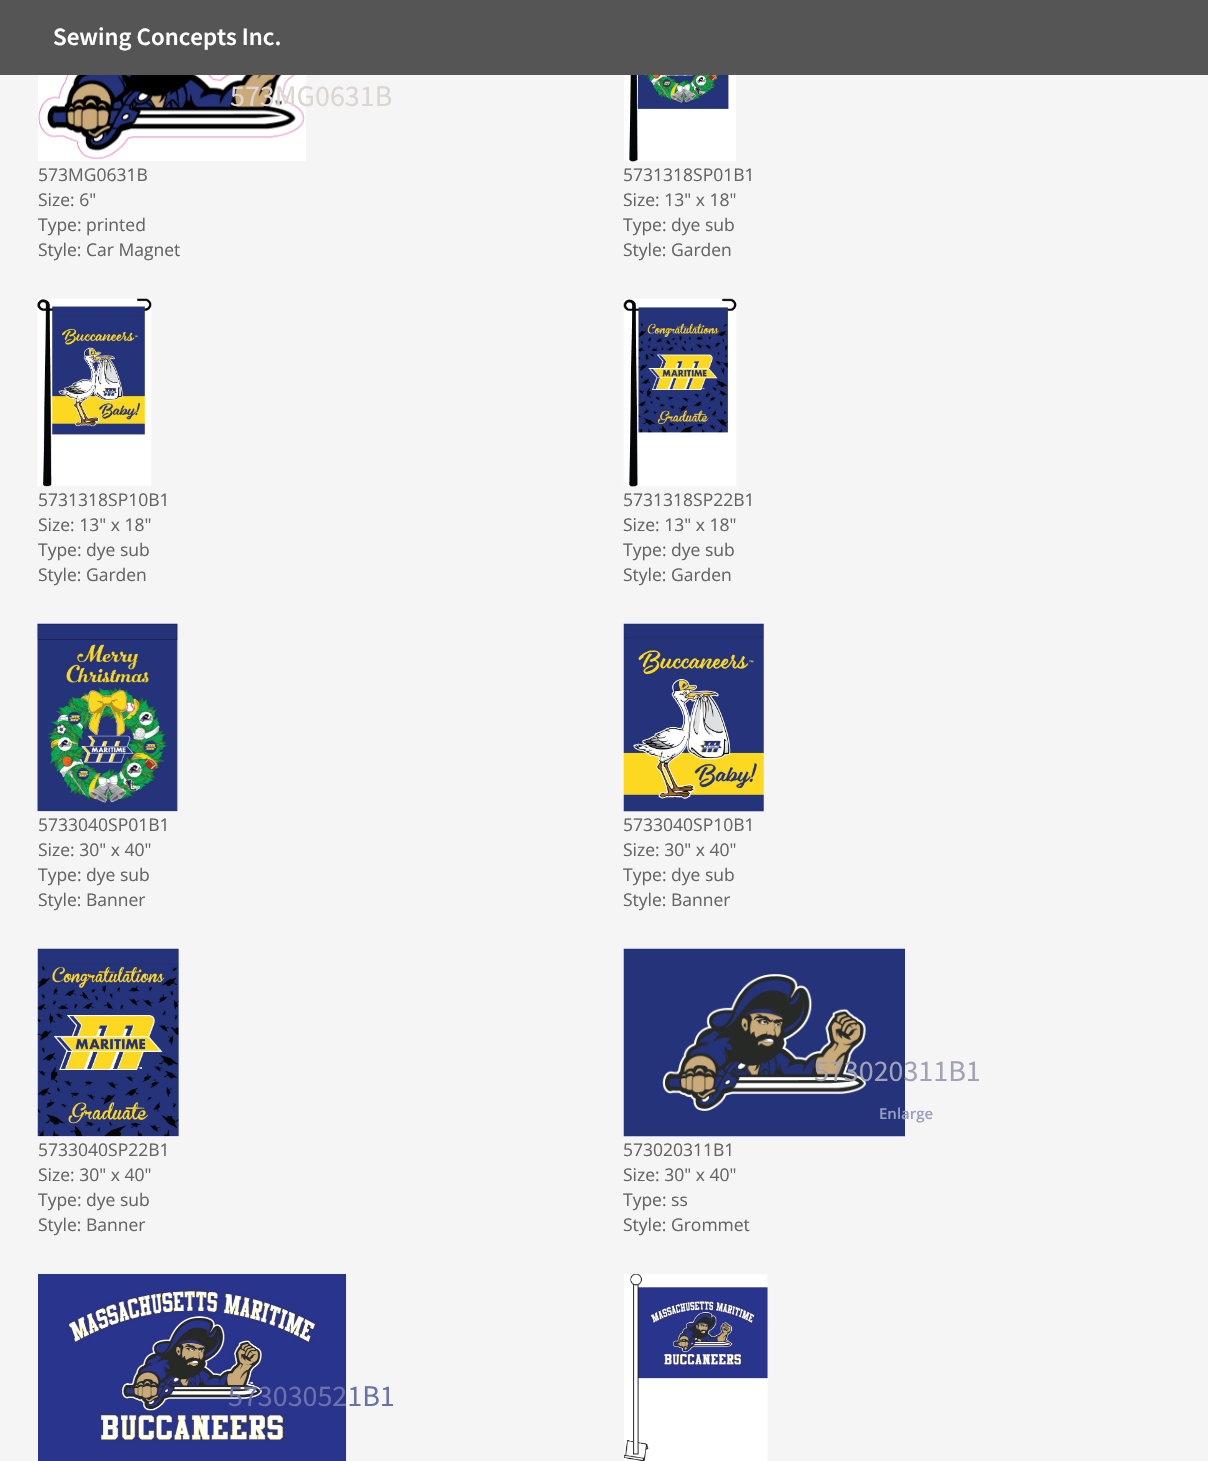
void draw(SkCanvas* c) {
SkPaint p;
p.setAntiAlias(true);
auto F=[&](const char* family, int weight, float size, bool italic = false){SkFontStyle style(weight, SkFontStyle::kNormal_Width,italic ? SkFontStyle::kItalic_Slant : SkFontStyle::kUpright_Slant);SkFont result(fontMgr->matchFamilyStyle(family, style), size);result.setSubpixel(true);return result;};
auto T=[&](const char* s, float x, float y, const SkFont& font){c->drawString(s, x, y, font, p);};
auto R=[&](float x, float y, float w, float h){c->drawRect(SkRect::MakeXYWH(x, y, w, h), p);};
auto I=[&](const char* path, float x, float y, float w, float h){auto image = SkImages::DeferredFromEncodedData(SkData::MakeFromFileName(path));c->drawImageRect(image, SkRect::MakeXYWH(x, y, w, h), SkSamplingOptions());};
c->clear(0xfff5f5f5);
p.setColor(0xff555555);
R(0,0,1208,75);
auto f1 = F("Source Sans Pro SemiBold",600,25);
p.setColor(0xffffffff);
T("Sewing Concepts Inc.",53,45,f1);
I("1.png",38,75,268,86);
auto f2 = F("Source Sans Pro",400,30);
p.setColor(0xffdcd6d0);
T("573MG0631B",230,106,f2);
auto f3 = F("Open Sans",400,17.5);
p.setColor(0xff646464);
T("573MG0631B",38,181,f3);
T("Size: 6\"",38,206,f3);
T("Type: printed",38,231,f3);
T("Style: Car Magnet",38,256,f3);
I("2.png",624,75,112,87);
T("5731318SP01B1",623,181,f3);
T("Size: 13\" x 18\"",623,206,f3);
T("Type: dye sub",623,231,f3);
T("Style: Garden",623,256,f3);
I("3.png",37,298,115,189);
T("5731318SP10B1",38,506,f3);
T("Size: 13\" x 18\"",38,531,f3);
T("Type: dye sub",38,556,f3);
T("Style: Garden",38,581,f3);
I("4.png",623,298,114,189);
T("5731318SP22B1",623,506,f3);
T("Size: 13\" x 18\"",623,531,f3);
T("Type: dye sub",623,556,f3);
T("Style: Garden",623,581,f3);
I("5.png",37,623,141,189);
T("5733040SP01B1",38,831,f3);
T("Size: 30\" x 40\"",38,856,f3);
T("Type: dye sub",38,881,f3);
T("Style: Banner",38,906,f3);
I("6.png",623,623,141,189);
T("5733040SP10B1",623,831,f3);
T("Size: 30\" x 40\"",623,856,f3);
T("Type: dye sub",623,881,f3);
T("Style: Banner",623,906,f3);
I("7.png",37,948,142,189);
T("5733040SP22B1",38,1156,f3);
T("Size: 30\" x 40\"",38,1181,f3);
T("Type: dye sub",38,1206,f3);
T("Style: Banner",38,1231,f3);
I("8.png",623,948,282,189);
p.setColor(0xffa1a3b5);
T("573020311B1",814,1081,f2);
auto f4 = F("Open Sans",600,15);
p.setColor(0xff999fbe);
T("Enlarge",879,1119,f4);
p.setColor(0xff646464);
T("573020311B1",623,1156,f3);
T("Size: 30\" x 40\"",623,1181,f3);
T("Type: ss",623,1206,f3);
T("Style: Grommet",623,1231,f3);
I("9.png",38,1274,309,187);
p.setColor(0xff6b72a9);
T("573030521B1",228,1406,f2);
I("10.png",624,1274,144,187);
}
